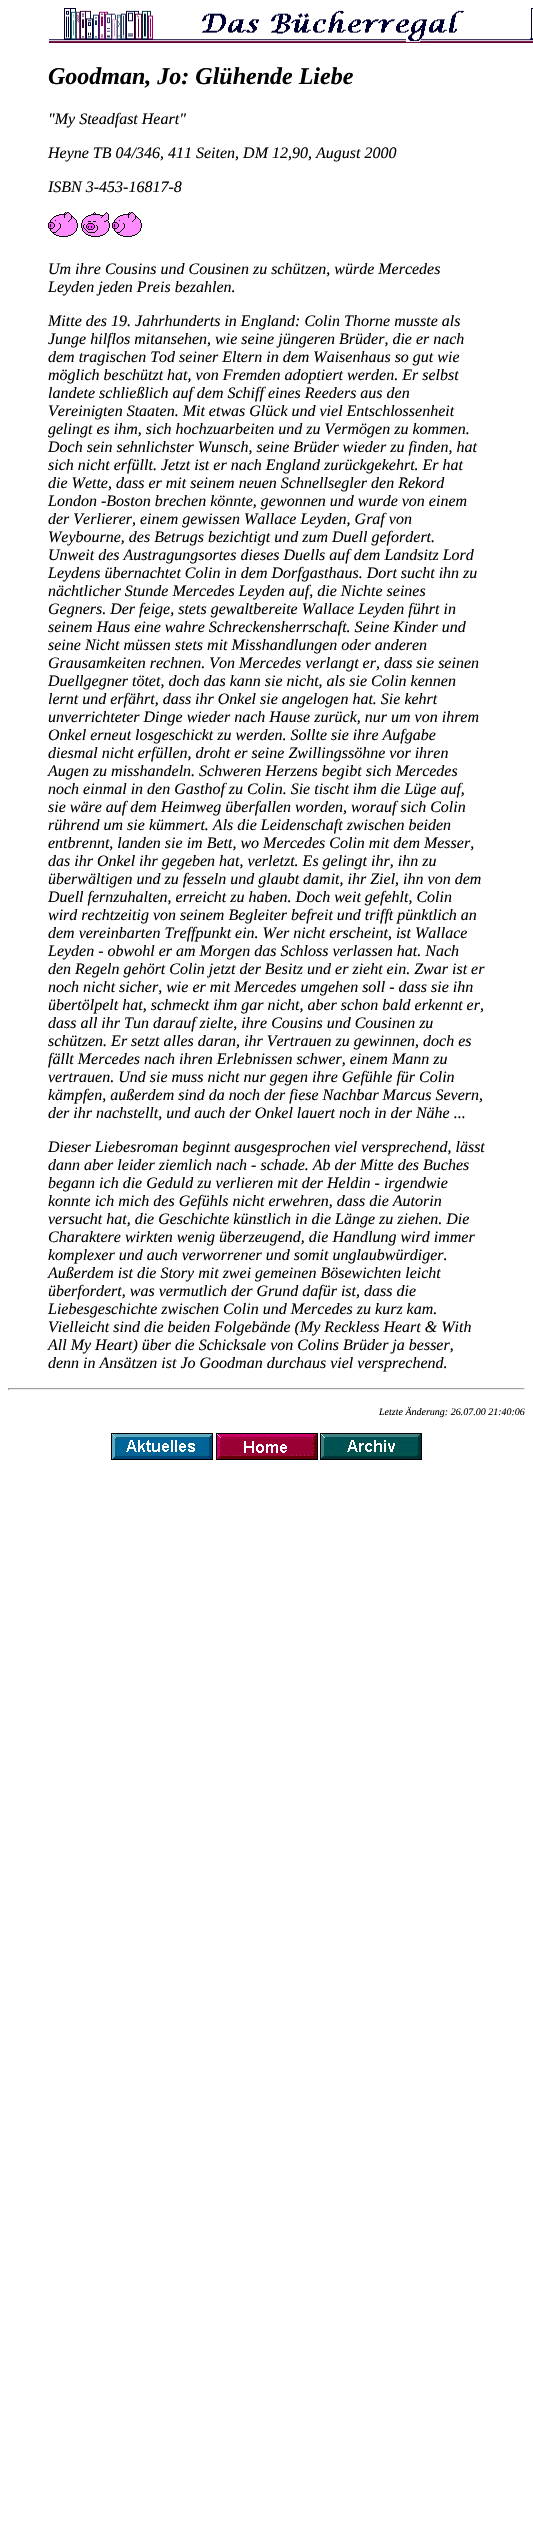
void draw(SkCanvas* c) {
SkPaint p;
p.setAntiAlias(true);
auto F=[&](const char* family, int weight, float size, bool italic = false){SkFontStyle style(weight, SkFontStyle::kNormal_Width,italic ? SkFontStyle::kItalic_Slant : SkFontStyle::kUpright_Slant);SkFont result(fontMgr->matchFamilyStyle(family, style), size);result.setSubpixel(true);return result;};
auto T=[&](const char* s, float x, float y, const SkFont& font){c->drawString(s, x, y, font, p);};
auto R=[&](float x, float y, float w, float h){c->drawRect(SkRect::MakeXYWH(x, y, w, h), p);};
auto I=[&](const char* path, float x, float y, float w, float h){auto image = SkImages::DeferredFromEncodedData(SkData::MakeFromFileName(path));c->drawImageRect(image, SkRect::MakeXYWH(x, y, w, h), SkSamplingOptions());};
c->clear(0xffffffff);
I("1.png",49,8,484,35);
auto f1 = F("Liberation Serif",700,24,true);
p.setColor(0xff000000);
T("Goodman, Jo: Glühende Liebe",48,84,f1);
auto f2 = F("Liberation Serif",400,16,true);
T("\"My Steadfast Heart\"",48,124,f2);
T("Heyne TB 04/346, 411 Seiten, DM 12,90, August 2000",48,158,f2);
T("ISBN 3-453-16817-8",48,192,f2);
I("2.png",48,212,30,25);
I("3.png",81,212,29,25);
I("2.png",112,212,30,25);
T("Um ihre Cousins und Cousinen zu schützen, würde Mercedes",48,274,f2);
T("Leyden jeden Preis bezahlen.",48,292,f2);
T("Mitte des 19. Jahrhunderts in England: Colin Thorne musste als",48,326,f2);
T("Junge hilflos mitansehen, wie seine jüngeren Brüder, die er nach",48,344,f2);
T("dem tragischen Tod seiner Eltern in dem Waisenhaus so gut wie",48,362,f2);
T("möglich beschützt hat, von Fremden adoptiert werden. Er selbst",48,380,f2);
T("landete schließlich auf dem Schiff eines Reeders aus den",48,398,f2);
T("Vereinigten Staaten. Mit etwas Glück und viel Entschlossenheit",48,416,f2);
T("gelingt es ihm, sich hochzuarbeiten und zu Vermögen zu kommen.",48,434,f2);
T("Doch sein sehnlichster Wunsch, seine Brüder wieder zu finden, hat",48,452,f2);
T("sich nicht erfüllt. Jetzt ist er nach England zurückgekehrt. Er hat",48,470,f2);
T("die Wette, dass er mit seinem neuen Schnellsegler den Rekord",48,488,f2);
T("London -Boston brechen könnte, gewonnen und wurde von einem",48,506,f2);
T("der Verlierer, einem gewissen Wallace Leyden, Graf von",48,524,f2);
T("Weybourne, des Betrugs bezichtigt und zum Duell gefordert.",48,542,f2);
T("Unweit des Austragungsortes dieses Duells auf dem Landsitz Lord",48,560,f2);
T("Leydens übernachtet Colin in dem Dorfgasthaus. Dort sucht ihn zu",48,578,f2);
T("nächtlicher Stunde Mercedes Leyden auf, die Nichte seines",48,596,f2);
T("Gegners. Der feige, stets gewaltbereite Wallace Leyden führt in",48,614,f2);
T("seinem Haus eine wahre Schreckensherrschaft. Seine Kinder und",48,632,f2);
T("seine Nicht müssen stets mit Misshandlungen oder anderen",48,650,f2);
T("Grausamkeiten rechnen. Von Mercedes verlangt er, dass sie seinen",48,668,f2);
T("Duellgegner tötet, doch das kann sie nicht, als sie Colin kennen",48,686,f2);
T("lernt und erfährt, dass ihr Onkel sie angelogen hat. Sie kehrt",48,704,f2);
T("unverrichteter Dinge wieder nach Hause zurück, nur um von ihrem",48,722,f2);
T("Onkel erneut losgeschickt zu werden. Sollte sie ihre Aufgabe",48,740,f2);
T("diesmal nicht erfüllen, droht er seine Zwillingssöhne vor ihren",48,758,f2);
T("Augen zu misshandeln. Schweren Herzens begibt sich Mercedes",48,776,f2);
T("noch einmal in den Gasthof zu Colin. Sie tischt ihm die Lüge auf,",48,794,f2);
T("sie wäre auf dem Heimweg überfallen worden, worauf sich Colin",48,812,f2);
T("rührend um sie kümmert. Als die Leidenschaft zwischen beiden",48,830,f2);
T("entbrennt, landen sie im Bett, wo Mercedes Colin mit dem Messer,",48,848,f2);
T("das ihr Onkel ihr gegeben hat, verletzt. Es gelingt ihr, ihn zu",48,866,f2);
T("überwältigen und zu fesseln und glaubt damit, ihr Ziel, ihn von dem",48,884,f2);
T("Duell fernzuhalten, erreicht zu haben. Doch weit gefehlt, Colin",48,902,f2);
T("wird rechtzeitig von seinem Begleiter befreit und trifft pünktlich an",48,920,f2);
T("dem vereinbarten Treffpunkt ein. Wer nicht erscheint, ist Wallace",48,938,f2);
T("Leyden - obwohl er am Morgen das Schloss verlassen hat. Nach",48,956,f2);
T("den Regeln gehört Colin jetzt der Besitz und er zieht ein. Zwar ist er",48,974,f2);
T("noch nicht sicher, wie er mit Mercedes umgehen soll - dass sie ihn",48,992,f2);
T("übertölpelt hat, schmeckt ihm gar nicht, aber schon bald erkennt er,",48,1010,f2);
T("dass all ihr Tun darauf zielte, ihre Cousins und Cousinen zu",48,1028,f2);
T("schützen. Er setzt alles daran, ihr Vertrauen zu gewinnen, doch es",48,1046,f2);
T("fällt Mercedes nach ihren Erlebnissen schwer, einem Mann zu",48,1064,f2);
T("vertrauen. Und sie muss nicht nur gegen ihre Gefühle für Colin",48,1082,f2);
T("kämpfen, außerdem sind da noch der fiese Nachbar Marcus Severn,",48,1100,f2);
T("der ihr nachstellt, und auch der Onkel lauert noch in der Nähe ...",48,1118,f2);
T("Dieser Liebesroman beginnt ausgesprochen viel versprechend, lässt",48,1152,f2);
T("dann aber leider ziemlich nach - schade. Ab der Mitte des Buches",48,1170,f2);
T("begann ich die Geduld zu verlieren mit der Heldin - irgendwie",48,1188,f2);
T("konnte ich mich des Gefühls nicht erwehren, dass die Autorin",48,1206,f2);
T("versucht hat, die Geschichte künstlich in die Länge zu ziehen. Die",48,1224,f2);
T("Charaktere wirkten wenig überzeugend, die Handlung wird immer",48,1242,f2);
T("komplexer und auch verworrener und somit unglaubwürdiger.",48,1260,f2);
T("Außerdem ist die Story mit zwei gemeinen Bösewichten leicht",48,1278,f2);
T("überfordert, was vermutlich der Grund dafür ist, dass die",48,1296,f2);
T("Liebesgeschichte zwischen Colin und Mercedes zu kurz kam.",48,1314,f2);
T("Vielleicht sind die beiden Folgebände (My Reckless Heart & With",48,1332,f2);
T("All My Heart) über die Schicksale von Colins Brüder ja besser,",48,1350,f2);
T("denn in Ansätzen ist Jo Goodman durchaus viel versprechend.",48,1368,f2);
p.setColor(0xff9f9f9f);
R(8,1388,517,1);
p.setColor(0xffeeeeee);
R(524,1388,1,2);
R(8,1389,517,1);
p.setColor(0xff9f9f9f);
R(8,1388,1,2);
auto f3 = F("Liberation Serif",400,10,true);
p.setColor(0xff000000);
T("Letzte Änderung: 26.07.00 21:40:06",379,1415,f3);
I("4.png",111,1433,102,27);
I("5.png",216,1433,102,27);
I("6.png",320,1433,102,27);
}
